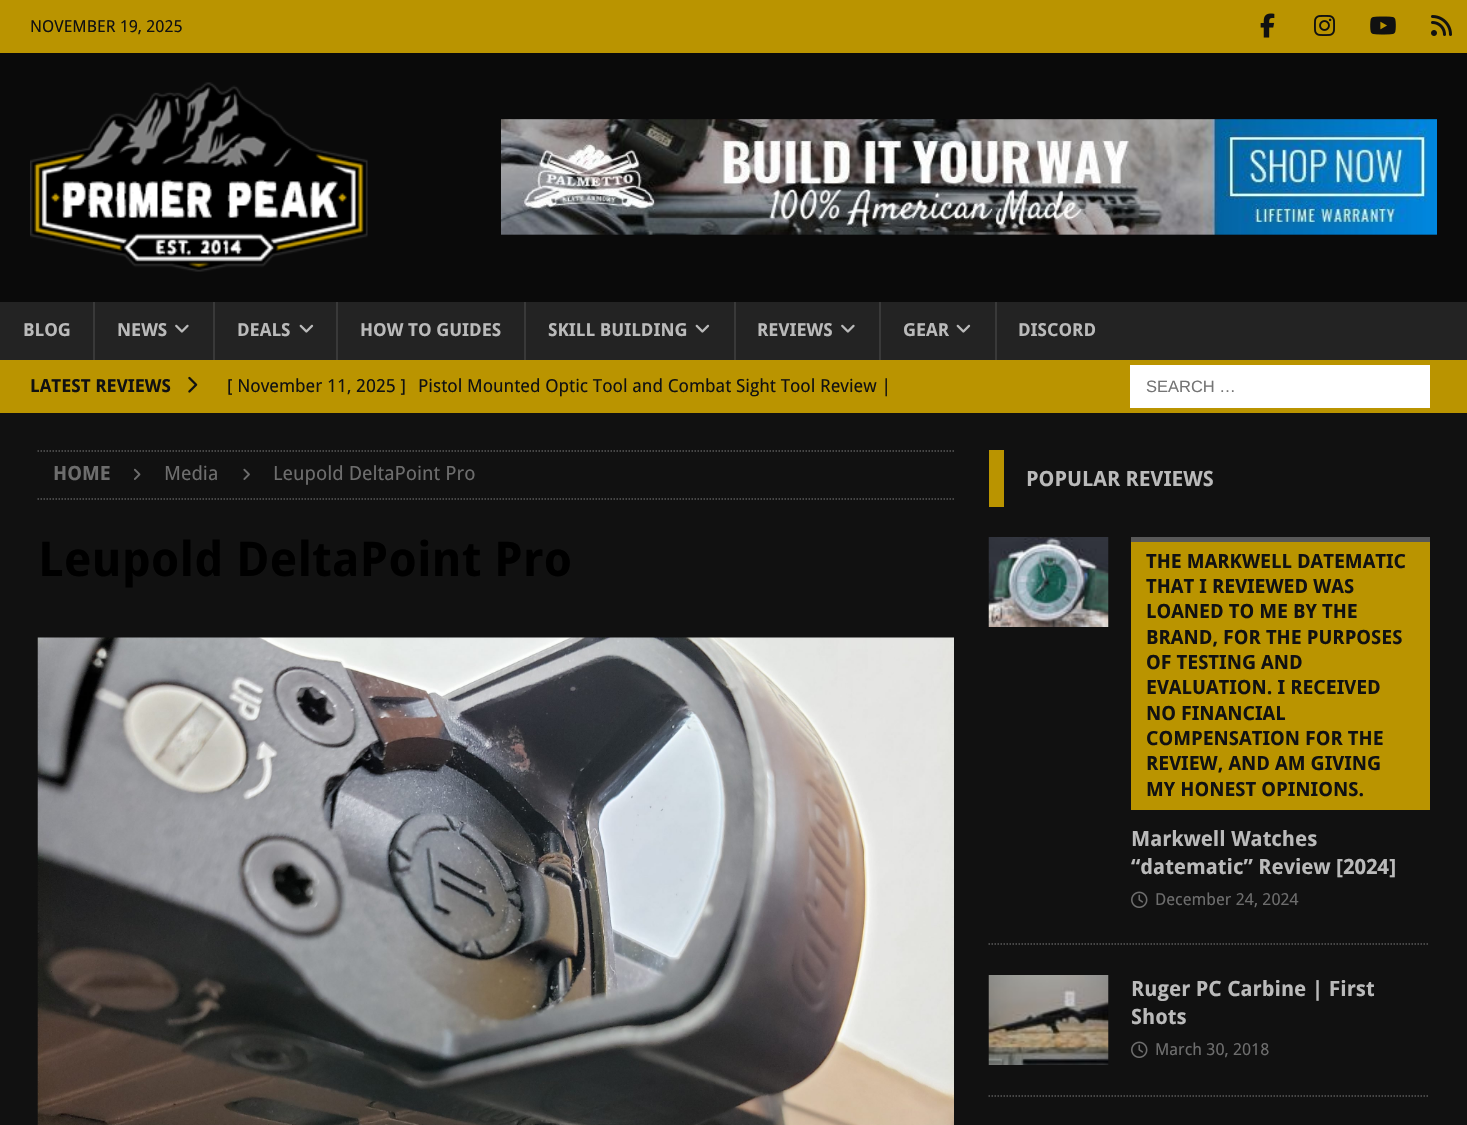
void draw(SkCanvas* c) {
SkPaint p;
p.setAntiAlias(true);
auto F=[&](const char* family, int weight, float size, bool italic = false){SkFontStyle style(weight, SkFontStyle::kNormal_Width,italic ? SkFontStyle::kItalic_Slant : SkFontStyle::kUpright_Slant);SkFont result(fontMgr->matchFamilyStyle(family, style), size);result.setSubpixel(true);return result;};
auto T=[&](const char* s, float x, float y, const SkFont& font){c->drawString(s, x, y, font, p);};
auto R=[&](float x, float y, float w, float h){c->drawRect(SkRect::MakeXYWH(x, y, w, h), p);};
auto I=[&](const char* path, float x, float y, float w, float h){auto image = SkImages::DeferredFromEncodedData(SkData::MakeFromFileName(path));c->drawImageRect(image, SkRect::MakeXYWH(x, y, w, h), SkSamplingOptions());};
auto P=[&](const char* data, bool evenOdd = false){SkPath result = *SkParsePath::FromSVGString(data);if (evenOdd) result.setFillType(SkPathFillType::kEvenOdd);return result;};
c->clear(0xff0a0a0a);
p.setColor(0xffba9400);
R(0,0,1467,53);
auto f1 = F("Droid Sans",400,16.5);
p.setColor(0xff111111);
T("NOVEMBER 19, 2025",30,32,f1);
I("1.png",1260,13,15,25);
I("2.png",1314,15,21,21);
I("3.png",1370,16,26,19);
I("4.png",1431,15,21,21);
I("5.png",30,82,338,190);
I("6.png",501,119,936,116);
p.setColor(0xff232323);
R(0,302,1467,58);
auto f2 = F("Droid Sans",700,18);
p.setColor(0xffbababa);
T("BLOG",23,336,f2);
p.setColor(0xff393939);
R(93,302,2,58);
p.setColor(0xffbababa);
T("NEWS",117,336,f2);
I("7.png",175,324,14,9);
p.setColor(0xff393939);
R(213,302,2,58);
p.setColor(0xffbababa);
T("DEALS",237,336,f2);
I("8.png",299,324,15,9);
p.setColor(0xff393939);
R(336,302,2,58);
p.setColor(0xffbababa);
T("HOW TO GUIDES",360,336,f2);
p.setColor(0xff393939);
R(524,302,2,58);
p.setColor(0xffbababa);
T("SKILL BUILDING",548,336,f2);
I("8.png",695,324,15,9);
p.setColor(0xff393939);
R(734,302,2,58);
p.setColor(0xffbababa);
T("REVIEWS",757,336,f2);
I("7.png",841,324,14,9);
p.setColor(0xff393939);
R(879,302,2,58);
p.setColor(0xffbababa);
T("GEAR",903,336,f2);
I("8.png",956,324,15,9);
p.setColor(0xff393939);
R(995,302,2,58);
p.setColor(0xffbababa);
T("DISCORD",1018,336,f2);
p.setColor(0xffba9400);
R(0,360,1467,53);
p.setColor(0xff111111);
T("LATEST REVIEWS",30,392,f2);
I("9.png",188,376,10,17);
auto f3 = F("Droid Sans",400,18);
T("[ November 11, 2025 ]",227,392,f3);
T("Pistol Mounted Optic Tool and Combat Sight Tool Review |",418,392,f3);
p.setColor(0xffffffff);
R(1130,365,300,43);
auto f4 = F("Liberation Sans",400,16.5);
p.setColor(0xff757575);
T("SEARCH …",1146,392,f4);
p.setColor(0xff111111);
R(0,413,1467,712);
p.setStroke(true);
p.setStrokeWidth(1.5);
p.setColor(0xff585858);
p.setPathEffect(SkDashPathEffect::Make({{1.5f,1.5f}}, 0));
c->drawPath(P("M37.5 451h916.5"),p);
p.setPathEffect(nullptr);
p.setPathEffect(SkDashPathEffect::Make({{1.5f,1.5f}}, 0));
c->drawPath(P("M37.5 499h916.5"),p);
p.setPathEffect(nullptr);
auto f5 = F("Droid Sans",700,19.5);
p.setStroke(false);
p.setColor(0xff6d6d6d);
T("HOME",53,480,f5);
I("10.png",134,468,7,12);
auto f6 = F("Droid Sans",400,19.5);
T("Media",164,480,f6);
I("11.png",243,468,7,12);
T("Leupold DeltaPoint Pro",273,480,f6);
auto f7 = F("Droid Sans",700,48);
p.setColor(0xff000000);
T("Leupold DeltaPoint Pro",38,576,f7);
I("12.png",37,637,917,488);
p.setColor(0xffba9400);
R(989,450,15,57);
auto f8 = F("Droid Sans",700,21);
p.setColor(0xffbababa);
T("POPULAR REVIEWS",1026,486,f8);
p.setStroke(true);
p.setColor(0xff585858);
p.setPathEffect(SkDashPathEffect::Make({{1.5f,1.5f}}, 0));
c->drawPath(P("M988.5 944h441"),p);
p.setPathEffect(nullptr);
I("13.png",988,537,121,90);
p.setStroke(false);
R(1131,537,299,5);
p.setColor(0xffba9400);
R(1131,542,299,268);
p.setColor(0xff111111);
T("THE MARKWELL DATEMATIC",1146,568,f5);
T("THAT I REVIEWED WAS",1146,593,f5);
T("LOANED TO ME BY THE",1146,618,f5);
T("BRAND, FOR THE PURPOSES",1146,644,f5);
T("OF TESTING AND",1146,669,f5);
T("EVALUATION. I RECEIVED",1146,694,f5);
T("NO FINANCIAL",1146,720,f5);
T("COMPENSATION FOR THE",1146,745,f5);
T("REVIEW, AND AM GIVING",1146,770,f5);
T("MY HONEST OPINIONS.",1146,796,f5);
p.setColor(0xffbababa);
T("Markwell Watches",1131,846,f8);
T("“datematic” Review [2024]",1131,874,f8);
I("14.png",1131,891,17,17);
p.setColor(0xff6d6d6d);
T("December 24, 2024",1155,905,f1);
p.setStroke(true);
p.setColor(0xff585858);
p.setPathEffect(SkDashPathEffect::Make({{1.5f,1.5f}}, 0));
c->drawPath(P("M988.5 1096h441"),p);
p.setPathEffect(nullptr);
I("15.png",988,975,121,90);
p.setStroke(false);
p.setColor(0xffbababa);
T("Ruger PC Carbine | First",1131,996,f8);
T("Shots",1131,1024,f8);
I("14.png",1131,1041,17,17);
p.setColor(0xff6d6d6d);
T("March 30, 2018",1155,1055,f1);
}
